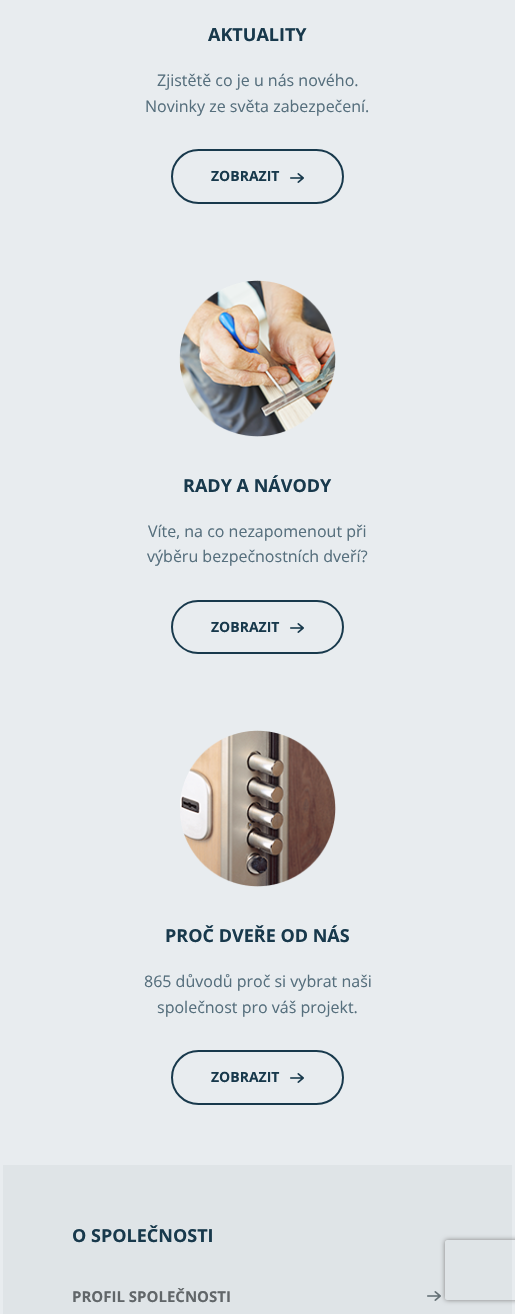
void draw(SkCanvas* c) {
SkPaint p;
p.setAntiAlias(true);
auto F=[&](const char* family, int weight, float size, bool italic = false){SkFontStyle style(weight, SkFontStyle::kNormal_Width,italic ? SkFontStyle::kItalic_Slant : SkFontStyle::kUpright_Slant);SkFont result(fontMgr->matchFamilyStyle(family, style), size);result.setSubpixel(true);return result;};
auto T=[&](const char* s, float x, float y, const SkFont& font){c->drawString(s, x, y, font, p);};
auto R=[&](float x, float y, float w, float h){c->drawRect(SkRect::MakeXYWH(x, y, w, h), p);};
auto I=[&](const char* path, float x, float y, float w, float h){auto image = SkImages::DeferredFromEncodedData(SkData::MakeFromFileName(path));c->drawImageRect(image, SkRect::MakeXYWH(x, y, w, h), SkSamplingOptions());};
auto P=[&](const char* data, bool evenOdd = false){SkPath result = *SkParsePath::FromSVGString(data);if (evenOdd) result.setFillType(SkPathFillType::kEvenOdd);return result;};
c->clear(0xffe8ecef);
auto f1 = F("Open Sans",700,18);
p.setColor(0xff18394c);
T("AKTUALITY",208,41,f1);
auto f2 = F("Open Sans",400,16);
p.setColor(0xff566f7d);
T("Zjistětě co je u nás nového.",157,86,f2);
T("Novinky ze světa zabezpečení.",145,112,f2);
p.setStroke(true);
p.setStrokeWidth(2);
p.setColor(0xff18394c);
c->drawRoundRect(SkRect::MakeXYWH(172,150,171,53),26.5,26.5,p);
auto f3 = F("Open Sans",700,14);
p.setStroke(false);
T("ZOBRAZIT",211,181,f3);
I("1.png",290,173,14,10);
I("2.png",179,280,157,157);
T("RADY A NÁVODY",183,492,f1);
p.setColor(0xff566f7d);
T("Víte, na co nezapomenout při",148,537,f2);
T("výběru bezpečnostních dveří?",147,562,f2);
p.setStroke(true);
p.setColor(0xff18394c);
c->drawRoundRect(SkRect::MakeXYWH(172,601,171,52),26,26,p);
p.setStroke(false);
T("ZOBRAZIT",211,632,f3);
I("1.png",290,623,14,10);
I("3.png",180,730,156,157);
T("PROČ DVEŘE OD NÁS",165,942,f1);
p.setColor(0xff566f7d);
T("865 důvodů proč si vybrat naši",144,987,f2);
T("společnost pro váš projekt.",157,1013,f2);
p.setStroke(true);
p.setColor(0xff18394c);
c->drawRoundRect(SkRect::MakeXYWH(172,1051,171,53),26.5,26.5,p);
p.setStroke(false);
T("ZOBRAZIT",211,1082,f3);
I("1.png",290,1073,14,10);
p.setColor(0xffdfe4e7);
R(3,1165,509,149);
p.setColor(0xff18394c);
T("O SPOLEČNOSTI",72,1242,f1);
auto f4 = F("Open Sans",700,15);
p.setColor(0xff616669);
T("PROFIL SPOLEČNOSTI",72,1302,f4);
I("4.png",427,1291,14,10);
c->save();
c->clipPath(P("M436 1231h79v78h-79zm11 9h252c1 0 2 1 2 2v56c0 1-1 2-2 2h-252c-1 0-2-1-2-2v-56c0-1 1-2 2-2z",true),true);
p.setColor(0xff808080);
p.setMaskFilter(SkMaskFilter::MakeBlur(kNormal_SkBlurStyle, 2.5));
c->drawRoundRect(SkRect::MakeXYWH(445,1240,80,60),2,2,p);
p.setMaskFilter(nullptr);
c->restore();
}
